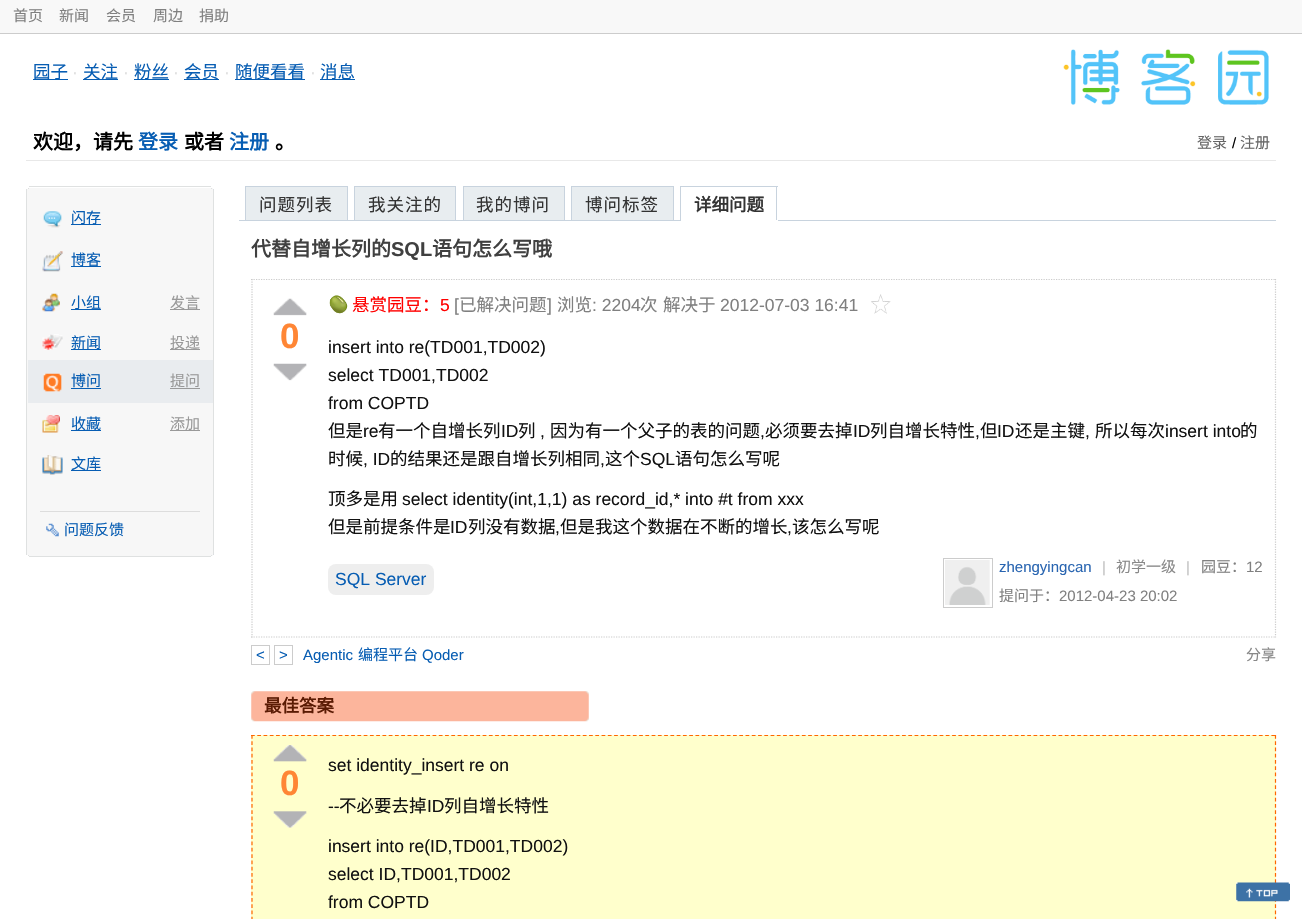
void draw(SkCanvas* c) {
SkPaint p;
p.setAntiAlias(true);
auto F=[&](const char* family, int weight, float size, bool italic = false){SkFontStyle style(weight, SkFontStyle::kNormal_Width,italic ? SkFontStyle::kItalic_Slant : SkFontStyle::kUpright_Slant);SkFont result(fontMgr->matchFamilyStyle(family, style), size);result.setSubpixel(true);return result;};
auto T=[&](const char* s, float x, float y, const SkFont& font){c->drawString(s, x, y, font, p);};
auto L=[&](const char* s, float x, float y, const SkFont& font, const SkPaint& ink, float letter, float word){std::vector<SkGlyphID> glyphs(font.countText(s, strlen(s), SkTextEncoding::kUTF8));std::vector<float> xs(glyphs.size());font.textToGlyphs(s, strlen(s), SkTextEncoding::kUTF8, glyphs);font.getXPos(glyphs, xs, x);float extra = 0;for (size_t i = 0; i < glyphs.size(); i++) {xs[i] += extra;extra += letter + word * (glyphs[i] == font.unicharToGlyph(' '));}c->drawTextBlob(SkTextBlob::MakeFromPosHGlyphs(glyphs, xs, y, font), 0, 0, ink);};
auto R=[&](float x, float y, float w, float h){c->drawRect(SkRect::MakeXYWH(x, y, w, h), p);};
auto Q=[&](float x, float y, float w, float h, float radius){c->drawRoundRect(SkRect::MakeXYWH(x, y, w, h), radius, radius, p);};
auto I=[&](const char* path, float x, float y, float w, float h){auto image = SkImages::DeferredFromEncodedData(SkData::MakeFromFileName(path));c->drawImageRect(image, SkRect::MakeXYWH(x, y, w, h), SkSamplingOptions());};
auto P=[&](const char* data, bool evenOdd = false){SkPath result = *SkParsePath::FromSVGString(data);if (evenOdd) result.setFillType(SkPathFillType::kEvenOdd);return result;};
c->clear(0xffffffff);
p.setColor(0xfff8f8f8);
R(0,0,1302,33);
p.setColor(0xffcccccc);
R(0,33,1302,1);
auto f1 = F("Noto Sans CJK SC",400,15);
p.setColor(0xff808080);
T("首页",13,21,f1);
T("新闻",59,21,f1);
T("会员",106,21,f1);
T("周边",153,21,f1);
T("捐助",199,21,f1);
p.setColor(0xffe8e8e8);
R(26,160,1250,1);
p.setColor(0xff075db3);
R(33,79,35,1);
auto f2 = F("Noto Sans CJK SC",400,17.5);
T("园子",33,78,f2);
auto f3 = F("Liberation Sans",400,17.5);
p.setColor(0xffdfdfdf);
T("·",72,78,f3);
p.setColor(0xff075db3);
R(83,79,35,1);
T("关注",83,78,f2);
p.setColor(0xffdfdfdf);
T("·",123,78,f3);
p.setColor(0xff075db3);
R(134,79,35,1);
T("粉丝",134,78,f2);
p.setColor(0xffdfdfdf);
T("·",173,78,f3);
p.setColor(0xff075db3);
R(184,79,35,1);
T("会员",184,78,f2);
p.setColor(0xffdfdfdf);
T("·",224,78,f3);
p.setColor(0xff075db3);
R(235,79,70,1);
T("随便看看",235,78,f2);
p.setColor(0xffdfdfdf);
T("·",310,78,f3);
p.setColor(0xff075db3);
R(320,79,35,1);
T("消息",320,78,f2);
I("1.png",1063,49,206,56);
auto f4 = F("Noto Sans CJK SC",700,20);
p.setColor(0xff000000);
T("欢迎，请先",33,149,f4);
p.setColor(0xff075db3);
T("登录",138,149,f4);
p.setColor(0xff000000);
T("或者",184,149,f4);
p.setColor(0xff075db3);
T("注册",229,149,f4);
p.setColor(0xff000000);
T("。",275,149,f4);
p.setColor(0xff666666);
T("登录",1197,148,f1);
auto f5 = F("Liberation Sans",400,15);
p.setColor(0xff000000);
T("/",1232,148,f5);
p.setColor(0xff666666);
T("注册",1240,148,f1);
p.setColor(0xffdfe1e1);
R(29,186,182,1);
p.setColor(0xfff7f7f7);
R(28,188,185,1);
p.setColor(0xffdfe1e1);
R(211,188,1,1);
R(28,188,1,1);
p.setColor(0xfff7f7f7);
R(26,189,188,1);
p.setColor(0xffdbdee2);
R(213,189,1,1);
p.setColor(0xffdfe1e1);
R(26,189,1,365);
p.setColor(0xfff7f7f7);
R(27,190,186,364);
p.setColor(0xffdfe1e1);
R(213,190,1,364);
I("2.png",43,211,19,17);
p.setColor(0xff075db3);
R(71,224,30,1);
T("闪存",71,223,f1);
I("3.png",42,251,21,21);
R(71,266,30,1);
T("博客",71,265,f1);
I("4.png",42,293,18,19);
R(71,309,30,1);
T("小组",71,308,f1);
p.setColor(0xff999999);
R(170,309,30,1);
T("发言",170,308,f1);
I("5.png",42,334,21,16);
p.setColor(0xff075db3);
R(71,349,30,1);
T("新闻",71,348,f1);
p.setColor(0xff999999);
R(170,349,30,1);
T("投递",170,348,f1);
p.setColor(0xffe9ecef);
R(28,360,185,43);
I("6.png",43,373,19,19);
p.setColor(0xff075db3);
T("博问",71,386,f1);
R(71,388,30,1);
p.setColor(0xff999999);
T("提问",170,386,f1);
R(170,388,30,1);
I("7.png",42,415,18,18);
p.setColor(0xff075db3);
R(71,430,30,1);
T("收藏",71,429,f1);
p.setColor(0xff999999);
R(170,430,30,1);
T("添加",170,429,f1);
I("8.png",42,455,21,20);
p.setColor(0xff075db3);
R(71,470,30,1);
T("文库",71,469,f1);
p.setColor(0xffdddddd);
R(40,511,160,1);
I("9.png",46,523,13,14);
p.setColor(0xff075db3);
T("问题反馈",64,535,f1);
p.setColor(0xfff7f7f7);
R(26,554,188,1);
p.setColor(0xffdbdee2);
R(213,554,1,1);
p.setColor(0xffdfe1e1);
R(26,554,1,1);
p.setColor(0xfff7f7f7);
R(28,555,185,1);
p.setColor(0xffdfe1e1);
R(211,555,1,1);
R(28,555,1,1);
R(29,556,182,1);
p.setColor(0xffc8d3de);
R(239,220,1037,1);
p.setColor(0xffe8edf0);
c->drawRect(SkRect::MakeXYWH(245.5,186.5,102,34),p);
p.setStroke(true);
p.setStrokeWidth(1);
p.setColor(0xffc8d3de);
c->drawRect(SkRect::MakeXYWH(245.5,186.5,102,34),p);
p.setStroke(false);
p.setColor(0xff333333);
L("问题列表",259,211,f2,p,1,0);
p.setColor(0xffe8edf0);
c->drawRect(SkRect::MakeXYWH(354.5,186.5,101,34),p);
p.setStroke(true);
p.setColor(0xffc8d3de);
c->drawRect(SkRect::MakeXYWH(354.5,186.5,101,34),p);
p.setStroke(false);
p.setColor(0xff333333);
L("我关注的",368,211,f2,p,1,0);
p.setColor(0xffe8edf0);
c->drawRect(SkRect::MakeXYWH(463.5,186.5,101,34),p);
p.setStroke(true);
p.setColor(0xffc8d3de);
c->drawRect(SkRect::MakeXYWH(463.5,186.5,101,34),p);
p.setStroke(false);
p.setColor(0xff333333);
L("我的博问",476,211,f2,p,1,0);
p.setColor(0xffe8edf0);
c->drawRect(SkRect::MakeXYWH(571.5,186.5,102,34),p);
p.setStroke(true);
p.setColor(0xffc8d3de);
c->drawRect(SkRect::MakeXYWH(571.5,186.5,102,34),p);
p.setStroke(false);
p.setColor(0xff333333);
L("博问标签",585,211,f2,p,1,0);
p.setColor(0xffc8d3de);
R(680,186,98,1);
R(776,186,1,35);
p.setColor(0xffffffff);
R(680,220,98,1);
p.setColor(0xffc8d3de);
R(680,186,1,35);
auto f6 = F("Noto Sans CJK SC",700,17.5);
p.setColor(0xff333333);
T("详细问题",694,211,f6);
p.setColor(0xff404040);
T("代替自增长列的",251,256,f4);
auto f7 = F("Liberation Sans",700,20);
T("SQL",391,256,f7);
T("语句怎么写哦",432,256,f4);
p.setStroke(true);
p.setStrokeWidth(1.2);
p.setColor(0xffcccccc);
p.setPathEffect(SkDashPathEffect::Make({{1.25f,1.25f}}, 0));
c->drawPath(P("M251 279.5h1025"),p);
p.setPathEffect(nullptr);
p.setPathEffect(SkDashPathEffect::Make({{1.25f,1.25f}}, 0));
c->drawPath(P("M1275.5 279v358.5"),p);
p.setPathEffect(nullptr);
p.setPathEffect(SkDashPathEffect::Make({{1.25f,1.25f}}, 0));
c->drawPath(P("M251 637h1025"),p);
p.setPathEffect(nullptr);
p.setPathEffect(SkDashPathEffect::Make({{1.25f,1.25f}}, 0));
c->drawPath(P("M252 279v358.5"),p);
p.setPathEffect(nullptr);
I("10.png",273,298,34,18);
auto f8 = F("Liberation Sans",700,35);
p.setStroke(false);
p.setColor(0xffff8635);
T("0",280,348,f8);
I("11.png",273,363,34,18);
I("12.png",329,295,19,19);
p.setColor(0xffff0000);
T("悬赏园豆：",352,311,f2);
T("5",440,311,f3);
p.setColor(0xff808080);
T("[",454,311,f3);
T("已解决问题",459,311,f2);
T("]",547,311,f3);
T("浏览",557,311,f2);
T(": 2204",592,311,f3);
T("次",640,311,f2);
T("解决于",663,311,f2);
T("2012-07-03 16:41",720,311,f3);
I("13.png",871,294,20,20);
p.setColor(0xff111111);
T("insert into re(TD001,TD002)",328,353,f3);
T("select TD001,TD002",328,381,f3);
T("from COPTD",328,409,f3);
T("但是",328,437,f2);
T("re",363,437,f3);
T("有一个自增长列",378,437,f2);
T("ID",501,437,f3);
T("列",518,437,f2);
T(",",540,437,f3);
T("因为有一个父子的表的问题",550,437,f2);
T(",",760,437,f3);
T("必须要去掉",765,437,f2);
T("ID",853,437,f3);
T("列自增长特性",870,437,f2);
T(",",975,437,f3);
T("但",980,437,f2);
T("ID",997,437,f3);
T("还是主键",1015,437,f2);
T(",",1085,437,f3);
T("所以每次",1095,437,f2);
T("insert into",1165,437,f3);
T("的",1240,437,f2);
T("时候",328,465,f2);
T(", ID",363,465,f3);
T("的结果还是跟自增长列相同",390,465,f2);
T(",",600,465,f3);
T("这个",605,465,f2);
T("SQL",640,465,f3);
T("语句怎么写呢",675,465,f2);
T("顶多是用",328,505,f2);
T("select identity(int,1,1) as record_id,* into #t from xxx",402,505,f3);
T("但是前提条件是",328,533,f2);
T("ID",450,533,f3);
T("列没有数据",468,533,f2);
T("但是我这个数据在不断的增长",560,533,f2);
T("该怎么写呢",792,533,f2);
T(",",555,533,f3);
T(",",787,533,f3);
p.setColor(0xffeeeeee);
Q(328,564,106,31,8);
p.setColor(0xff075db3);
T("SQL Server",335,585,f3);
p.setStroke(true);
p.setStrokeWidth(1);
p.setColor(0xffcccccc);
c->drawRect(SkRect::MakeXYWH(943.5,558.5,49,49),p);
I("14.png",945,560,45,45);
p.setStroke(false);
p.setColor(0xff2965b1);
T("zhengyingcan",999,572,f5);
p.setColor(0xffc1c1c1);
T("|",1102,572,f5);
p.setColor(0xff888888);
T("初学一级",1116,572,f1);
p.setColor(0xffc1c1c1);
T("|",1186,572,f5);
p.setColor(0xff808080);
T("园豆：",1201,572,f1);
T("12",1246,572,f5);
T("提问于：",999,601,f1);
T("2012-04-23 20:02",1059,601,f5);
p.setStroke(true);
p.setColor(0xffcccccc);
c->drawRect(SkRect::MakeXYWH(251.5,645.5,18,19),p);
p.setStroke(false);
p.setColor(0xff075db3);
T("<",256,660,f5);
p.setStroke(true);
p.setColor(0xffcccccc);
c->drawRect(SkRect::MakeXYWH(274.5,645.5,18,19),p);
p.setStroke(false);
p.setColor(0xff075db3);
T(">",279,660,f5);
T("Agentic",303,660,f5);
T("编程平台",358,660,f1);
T("Qoder",422,660,f5);
p.setColor(0xff888888);
T("分享",1246,660,f1);
I("15.png",251,691,338,31);
p.setColor(0xff5a1a03);
T("最佳答案",264,712,f6);
p.setColor(0xffffffcc);
R(251,735,1025,184);
p.setStroke(true);
p.setStrokeWidth(1.2);
p.setColor(0xffff6600);
p.setPathEffect(SkDashPathEffect::Make({{3.75f,2.51f}}, 0));
c->drawPath(P("M251 735.5h1025"),p);
p.setPathEffect(nullptr);
p.setPathEffect(SkDashPathEffect::Make({{3.75f,2.52f}}, 0));
c->drawPath(P("M1275.5 735v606"),p);
p.setPathEffect(nullptr);
p.setPathEffect(SkDashPathEffect::Make({{3.75f,2.52f}}, 0));
c->drawPath(P("M252 735v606"),p);
p.setPathEffect(nullptr);
I("16.png",273,745,34,17);
p.setStroke(false);
p.setColor(0xffff8635);
T("0",280,795,f8);
I("17.png",273,811,34,17);
p.setColor(0xff111111);
T("set identity_insert re on",328,771,f3);
T("--",328,812,f3);
T("不必要去掉",339,812,f2);
T("ID",427,812,f3);
T("列自增长特性",444,812,f2);
T("insert into re(ID,TD001,TD002)",328,852,f3);
T("select ID,TD001,TD002",328,880,f3);
T("from COPTD",328,908,f3);
I("18.png",1236,882,54,20);
}
